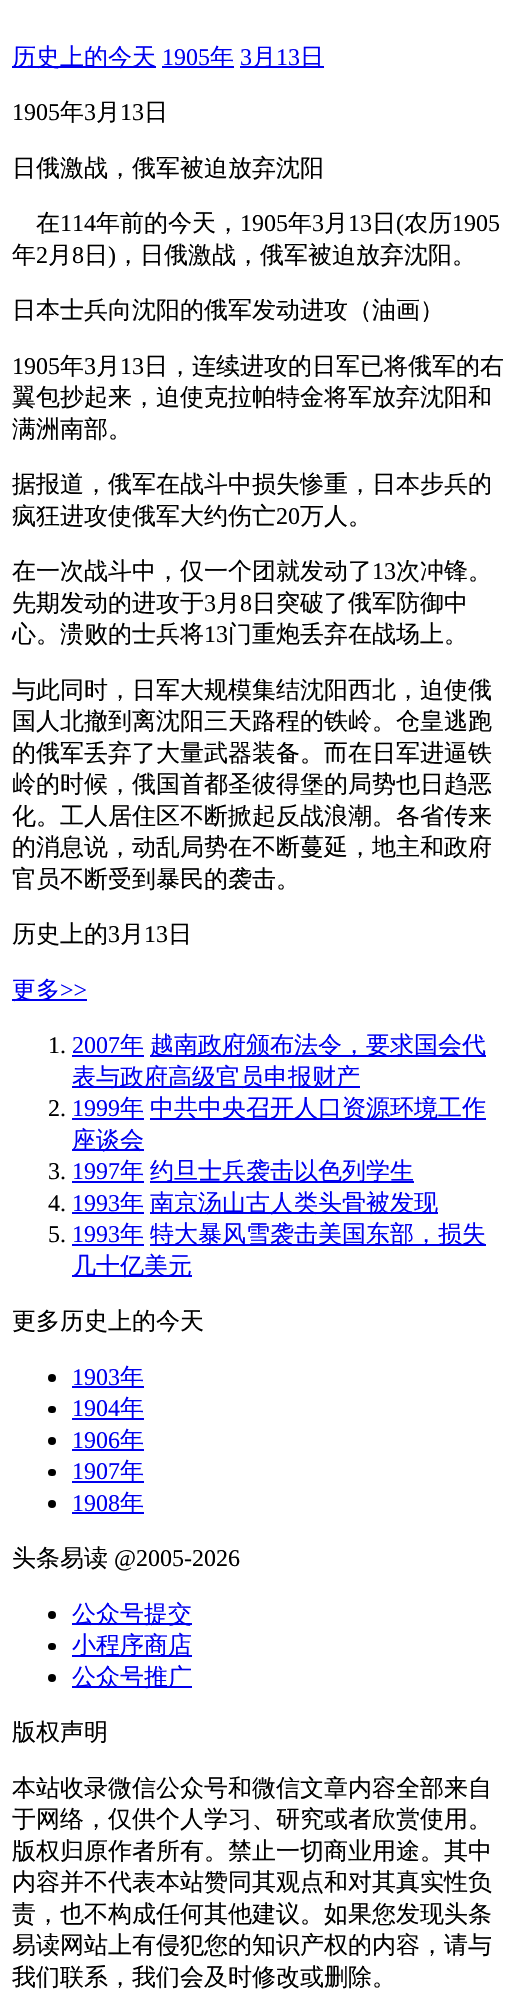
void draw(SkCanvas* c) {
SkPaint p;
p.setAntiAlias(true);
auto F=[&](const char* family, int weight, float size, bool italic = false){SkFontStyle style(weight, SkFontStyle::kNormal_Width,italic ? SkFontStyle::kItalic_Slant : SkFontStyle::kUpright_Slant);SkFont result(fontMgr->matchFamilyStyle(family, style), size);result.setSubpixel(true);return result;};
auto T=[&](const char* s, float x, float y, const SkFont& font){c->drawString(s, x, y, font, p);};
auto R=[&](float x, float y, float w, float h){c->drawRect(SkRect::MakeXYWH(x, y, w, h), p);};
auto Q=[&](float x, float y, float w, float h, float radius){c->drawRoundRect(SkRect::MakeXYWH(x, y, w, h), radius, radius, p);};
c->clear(0xffffffff);
p.setColor(0xff0000ee);
R(12,66,144,2);
auto f1 = F("WenQuanYi Zen Hei",500,24);
T("历史上的今天",12,65,f1);
auto f2 = F("Liberation Serif",400,24);
T("1905",162,65,f2);
R(162,66,72,2);
T("年",210,65,f1);
T("3",240,65,f2);
R(240,66,84,2);
T("月",252,65,f1);
T("13",276,65,f2);
T("日",300,65,f1);
p.setColor(0xff000000);
T("1905",12,120,f2);
T("年",60,120,f1);
T("3",84,120,f2);
T("月",96,120,f1);
T("13",120,120,f2);
T("日",144,120,f1);
T("日俄激战，俄军被迫放弃沈阳",12,176,f1);
T("在",36,231,f1);
T("114",60,231,f2);
T("年前的今天，",96,231,f1);
T("1905",240,231,f2);
T("年",288,231,f1);
T("3",312,231,f2);
T("月",324,231,f1);
T("13",348,231,f2);
T("日",372,231,f1);
T("(",396,231,f2);
T("农历",404,231,f1);
T("1905",452,231,f2);
T("年",12,263,f1);
T("2",36,263,f2);
T("月",48,263,f1);
T("8",72,263,f2);
T("日",84,263,f1);
T(")",108,263,f2);
T("，日俄激战，俄军被迫放弃沈阳。",116,263,f1);
T("日本士兵向沈阳的俄军发动进攻（油画）",12,318,f1);
T("1905",12,374,f2);
T("年",60,374,f1);
T("3",84,374,f2);
T("月",96,374,f1);
T("13",120,374,f2);
T("日，连续进攻的日军已将俄军的右",144,374,f1);
T("翼包抄起来，迫使克拉帕特金将军放弃沈阳和",12,405,f1);
T("满洲南部。",12,437,f1);
T("据报道，俄军在战斗中损失惨重，日本步兵的",12,492,f1);
T("疯狂进攻使俄军大约伤亡",12,524,f1);
T("20",276,524,f2);
T("万人。",300,524,f1);
T("在一次战斗中，仅一个团就发动了",12,579,f1);
T("13",372,579,f2);
T("次冲锋。",396,579,f1);
T("先期发动的进攻于",12,611,f1);
T("3",204,611,f2);
T("月",216,611,f1);
T("8",240,611,f2);
T("日突破了俄军防御中",252,611,f1);
T("心。溃败的士兵将",12,642,f1);
T("13",204,642,f2);
T("门重炮丢弃在战场上。",228,642,f1);
T("与此同时，日军大规模集结沈阳西北，迫使俄",12,698,f1);
T("国人北撤到离沈阳三天路程的铁岭。仓皇逃跑",12,729,f1);
T("的俄军丢弃了大量武器装备。而在日军进逼铁",12,761,f1);
T("岭的时候，俄国首都圣彼得堡的局势也日趋恶",12,792,f1);
T("化。工人居住区不断掀起反战浪潮。各省传来",12,824,f1);
T("的消息说，动乱局势在不断蔓延，地主和政府",12,855,f1);
T("官员不断受到暴民的袭击。",12,887,f1);
T("历史上的",12,942,f1);
T("3",108,942,f2);
T("月",120,942,f1);
T("13",144,942,f2);
T("日",168,942,f1);
p.setColor(0xff0000ee);
R(12,999,75,2);
T("更多",12,998,f1);
T(">>",60,998,f2);
p.setColor(0xff000000);
T("1.",48,1053,f2);
p.setColor(0xff0000ee);
T("2007",72,1053,f2);
R(72,1055,72,2);
T("年",120,1053,f1);
R(150,1055,336,2);
T("越南政府颁布法令，要求国会代",150,1053,f1);
R(72,1086,288,2);
T("表与政府高级官员申报财产",72,1085,f1);
p.setColor(0xff000000);
T("2.",48,1116,f2);
p.setColor(0xff0000ee);
T("1999",72,1116,f2);
R(72,1118,72,2);
T("年",120,1116,f1);
R(150,1118,336,2);
T("中共中央召开人口资源环境工作",150,1116,f1);
R(72,1149,72,2);
T("座谈会",72,1148,f1);
p.setColor(0xff000000);
T("3.",48,1179,f2);
p.setColor(0xff0000ee);
T("1997",72,1179,f2);
R(72,1181,72,2);
T("年",120,1179,f1);
R(150,1181,264,2);
T("约旦士兵袭击以色列学生",150,1179,f1);
p.setColor(0xff000000);
T("4.",48,1211,f2);
p.setColor(0xff0000ee);
T("1993",72,1211,f2);
R(72,1212,72,2);
T("年",120,1211,f1);
R(150,1212,288,2);
T("南京汤山古人类头骨被发现",150,1211,f1);
p.setColor(0xff000000);
T("5.",48,1242,f2);
p.setColor(0xff0000ee);
T("1993",72,1242,f2);
R(72,1244,72,2);
T("年",120,1242,f1);
R(150,1244,336,2);
T("特大暴风雪袭击美国东部，损失",150,1242,f1);
R(72,1275,120,2);
T("几十亿美元",72,1274,f1);
p.setColor(0xff000000);
T("更多历史上的今天",12,1329,f1);
c->drawCircle(52,1378,4,p);
p.setColor(0xff0000ee);
T("1903",72,1385,f2);
R(72,1386,72,2);
T("年",120,1385,f1);
p.setColor(0xff000000);
Q(48,1406,8,7,3.5);
p.setColor(0xff0000ee);
T("1904",72,1416,f2);
R(72,1418,72,2);
T("年",120,1416,f1);
p.setColor(0xff000000);
c->drawCircle(52,1441,4,p);
p.setColor(0xff0000ee);
T("1906",72,1448,f2);
R(72,1449,72,2);
T("年",120,1448,f1);
p.setColor(0xff000000);
Q(48,1469,8,7,3.5);
p.setColor(0xff0000ee);
T("1907",72,1479,f2);
R(72,1481,72,2);
T("年",120,1479,f1);
p.setColor(0xff000000);
c->drawCircle(52,1504,4,p);
p.setColor(0xff0000ee);
T("1908",72,1511,f2);
R(72,1512,72,2);
T("年",120,1511,f1);
p.setColor(0xff000000);
T("头条易读",12,1566,f1);
T("@2005-2026",114,1566,f2);
c->drawCircle(52,1615,4,p);
p.setColor(0xff0000ee);
R(72,1623,120,2);
T("公众号提交",72,1622,f1);
p.setColor(0xff000000);
Q(48,1643,8,7,3.5);
p.setColor(0xff0000ee);
R(72,1655,120,2);
T("小程序商店",72,1653,f1);
p.setColor(0xff000000);
c->drawCircle(52,1678,4,p);
p.setColor(0xff0000ee);
R(72,1686,120,2);
T("公众号推广",72,1685,f1);
p.setColor(0xff000000);
T("版权声明",12,1740,f1);
T("本站收录微信公众号和微信文章内容全部来自",12,1796,f1);
T("于网络，仅供个人学习、研究或者欣赏使用。",12,1827,f1);
T("版权归原作者所有。禁止一切商业用途。其中",12,1859,f1);
T("内容并不代表本站赞同其观点和对其真实性负",12,1890,f1);
T("责，也不构成任何其他建议。如果您发现头条",12,1922,f1);
T("易读网站上有侵犯您的知识产权的内容，请与",12,1953,f1);
T("我们联系，我们会及时修改或删除。",12,1985,f1);
}
